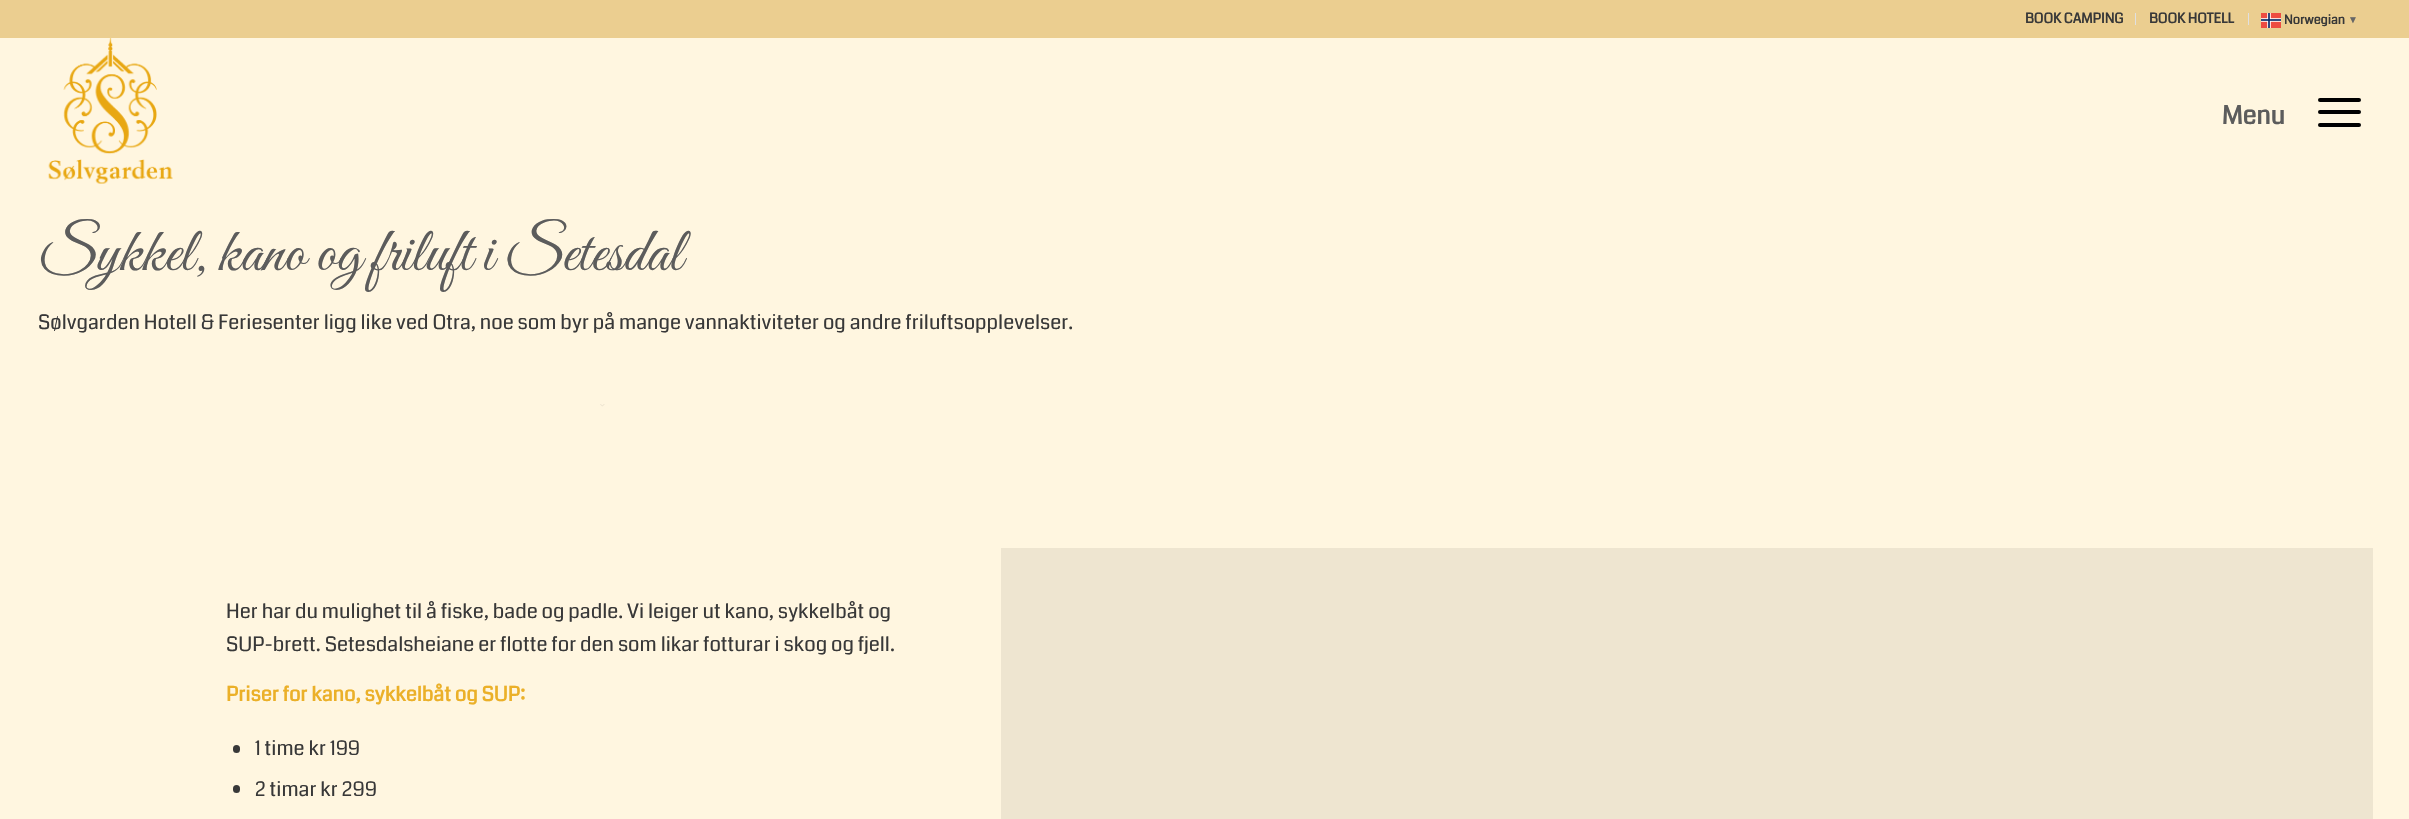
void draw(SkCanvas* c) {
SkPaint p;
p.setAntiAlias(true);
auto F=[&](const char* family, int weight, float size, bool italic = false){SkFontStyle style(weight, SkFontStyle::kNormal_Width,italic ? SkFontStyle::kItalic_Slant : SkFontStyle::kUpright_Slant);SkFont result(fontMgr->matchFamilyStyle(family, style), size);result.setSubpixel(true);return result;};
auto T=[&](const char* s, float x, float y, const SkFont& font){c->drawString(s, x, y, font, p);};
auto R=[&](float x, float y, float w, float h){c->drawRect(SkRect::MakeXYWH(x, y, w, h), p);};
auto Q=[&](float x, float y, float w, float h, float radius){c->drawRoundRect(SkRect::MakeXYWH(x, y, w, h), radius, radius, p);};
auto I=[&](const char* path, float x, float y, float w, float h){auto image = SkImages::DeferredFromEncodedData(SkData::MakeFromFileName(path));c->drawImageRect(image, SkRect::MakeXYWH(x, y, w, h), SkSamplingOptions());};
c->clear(0xfffff6e0);
p.setColor(0xffebce90);
R(0,0,2409,38);
p.setColor(0xffe0e0e0);
R(2135,13,1,12);
auto f1 = F("Coda",700,13.75);
p.setColor(0xff383838);
T("BOOK CAMPING",2025,23,f1);
p.setColor(0xffe0e0e0);
R(2248,13,1,12);
p.setColor(0xff383838);
T("BOOK HOTELL",2149,23,f1);
I("1.png",2261,13,20,15);
auto f2 = F("Coda",700,12.5);
T("Norwegian",2284,24,f2);
auto f3 = F("Liberation Sans",700,10);
p.setColor(0xff666666);
T("▼",2348,23,f3);
I("2.png",48,38,125,146);
auto f4 = F("Coda",700,25);
p.setColor(0xff5c5c5c);
T("Menu",2222,124,f4);
p.setColor(0xff000000);
Q(2318,110,43,4,2);
Q(2318,98,43,4,2);
Q(2318,123,43,4,2);
auto f5 = F("Great Vibes",400,62.5);
p.setColor(0xff5c5c5c);
T("Sykkel, kano og friluft i Setesdal",38,270,f5);
auto f6 = F("Coda",400,20);
p.setColor(0xff383838);
T("Sølvgarden Hotell & Feriesenter ligg like ved Otra, noe som byr på mange vannaktiviteter og andre friluftsopplevelser.",38,329,f6);
I("3.png",600,404,5,3);
T("Her har du mulighet til å fiske, bade og padle. Vi leiger ut kano, sykkelbåt og",226,618,f6);
T("SUP-brett. Setesdalsheiane er flotte for den som likar fotturar i skog og fjell.",226,651,f6);
auto f7 = F("Coda",700,20);
p.setColor(0xffebb028);
T("Priser for kano, sykkelbåt og SUP:",226,701,f7);
p.setColor(0xff383838);
Q(233,745,7,8,3.5);
T("1 time kr 199",255,755,f6);
Q(233,785,7,8,3.5);
T("2 timar kr 299",255,796,f6);
p.setColor(0xffeee5d0);
R(1001,548,1372,271);
}
